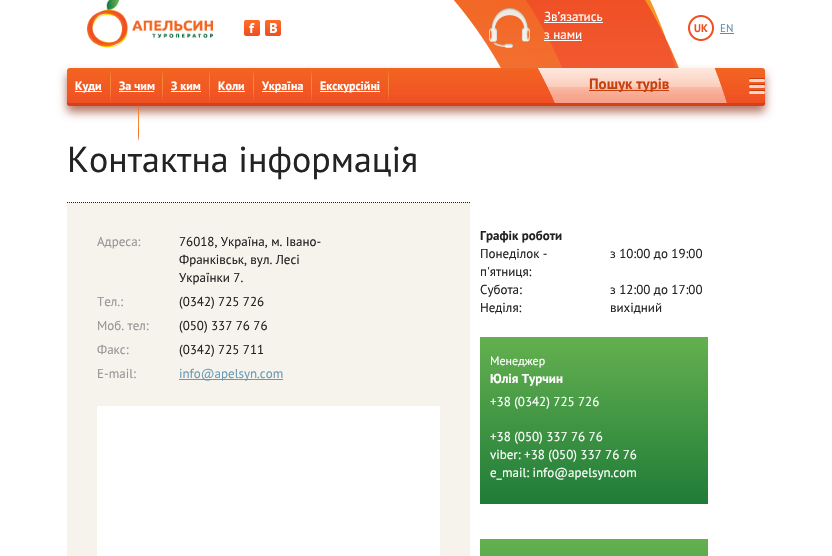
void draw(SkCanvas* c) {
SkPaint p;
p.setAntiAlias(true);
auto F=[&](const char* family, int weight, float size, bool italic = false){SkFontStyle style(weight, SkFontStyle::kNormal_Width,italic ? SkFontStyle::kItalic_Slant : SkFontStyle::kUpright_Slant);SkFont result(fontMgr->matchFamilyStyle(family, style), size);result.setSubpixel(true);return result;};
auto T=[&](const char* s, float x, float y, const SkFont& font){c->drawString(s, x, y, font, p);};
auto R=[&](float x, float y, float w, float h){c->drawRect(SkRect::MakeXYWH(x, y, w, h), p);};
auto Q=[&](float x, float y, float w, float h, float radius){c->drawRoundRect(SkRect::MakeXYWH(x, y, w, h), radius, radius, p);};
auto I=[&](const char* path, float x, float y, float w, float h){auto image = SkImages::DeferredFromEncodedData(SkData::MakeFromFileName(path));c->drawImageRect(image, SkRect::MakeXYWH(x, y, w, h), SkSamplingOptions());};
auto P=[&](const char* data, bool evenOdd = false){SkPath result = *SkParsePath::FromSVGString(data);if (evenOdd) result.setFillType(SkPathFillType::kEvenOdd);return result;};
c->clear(0xffffffff);
I("1.png",454,0,237,68);
I("2.png",87,0,126,48);
I("3.png",244,20,16,16);
I("4.png",265,20,16,16);
I("5.png",489,8,41,40);
auto f1 = F("PT Sans",400,13);
p.setColor(0xffffffff);
T("Зв’язатись",544,21,f1);
R(544,22,59,1);
T("з нами",544,39,f1);
R(544,40,38,1);
I("6.png",688,15,26,26);
auto f2 = F("PT Sans",700,11);
p.setColor(0xfff04e23);
T("UK",694,32,f2);
auto f3 = F("PT Sans",400,11);
p.setColor(0xff5f8baf);
T("EN",720,32,f3);
R(720,33,14,1);
p.setColor(0xffb57462);
p.setMaskFilter(SkMaskFilter::MakeBlur(kNormal_SkBlurStyle, 5));
c->drawRoundRect(SkRect::MakeXYWH(67,74,698,38),3,3,p);
p.setMaskFilter(nullptr);
{
const SkColor colors[] = {0xfff26522,0xfff04e23};
const float stops[] = {0,1};
const SkPoint ends[] = {{416,68}, {416,106}};
p.setShader(SkGradientShader::MakeLinear(ends, colors, stops, 2, SkTileMode::kClamp));
p.setAlpha(255);
}
Q(67,68,698,38,3);
p.setShader(nullptr);
p.setColor(0xffd54019);
c->drawPath(P("M67 100v3c0 2 1 3 3 3h692c2 0 3-1 3-3v-3c0 2-1 3-3 3h-692c-2 0-3-1-3-3z"),p);
I("7.png",110,70,1,32);
p.setColor(0xffffffff);
R(75,91,27,1);
auto f4 = F("PT Sans",700,12);
T("Куди",75,90,f4);
I("7.png",162,70,1,32);
T("За чим",119,90,f4);
R(119,91,35,1);
I("7.png",209,70,1,32);
T("З ким",171,90,f4);
R(171,91,30,1);
I("7.png",253,70,1,32);
T("Коли",218,90,f4);
R(218,91,27,1);
I("7.png",311,70,1,32);
R(262,91,41,1);
T("Україна",262,90,f4);
I("7.png",388,70,1,32);
R(320,91,60,1);
T("Екскурсійні",320,90,f4);
I("8.png",138,105,1,35);
I("9.png",538,68,189,35);
I("10.png",749,78,16,16);
p.setColor(0xffc7410e);
R(589,90,80,1);
auto f5 = F("PT Sans",700,15);
T("Пошук турів",589,89,f5);
auto f6 = F("PT Sans",400,36);
p.setColor(0xff232323);
T("Контактна інформація",67,172,f6);
p.setColor(0xfff6f3ed);
R(67,202,403,354);
p.setStroke(true);
p.setStrokeWidth(1);
p.setColor(0xff232323);
p.setPathEffect(SkDashPathEffect::Make({{1,1}}, 0));
c->drawPath(P("M67 202.5h403"),p);
p.setPathEffect(nullptr);
p.setStroke(false);
p.setColor(0xff969696);
T("Адреса:",97,246,f1);
p.setColor(0xff232323);
T("76018, Україна, м. Івано-",179,246,f1);
T("Франківськ, вул. Лесі",179,264,f1);
T("Українки 7.",179,282,f1);
p.setColor(0xff969696);
T("Тел.:",97,306,f1);
p.setColor(0xff232323);
T("(0342) 725 726",179,306,f1);
p.setColor(0xff969696);
T("Моб. тел:",97,330,f1);
p.setColor(0xff232323);
T("(050) 337 76 76",179,330,f1);
p.setColor(0xff969696);
T("Факс:",97,354,f1);
p.setColor(0xff232323);
T("(0342) 725 711",179,354,f1);
p.setColor(0xff969696);
T("E-mail:",97,378,f1);
p.setColor(0xff6a9bb6);
R(179,379,104,1);
T("info@apelsyn.com",179,378,f1);
p.setColor(0xffffffff);
R(97,406,343,150);
auto f7 = F("PT Sans",700,13);
p.setColor(0xff232323);
T("Графік роботи",480,240,f7);
T("Понеділок -",480,258,f1);
T("п'ятниця:",480,276,f1);
T("з 10:00 до 19:00",610,258,f1);
T("Субота:",480,294,f1);
T("з 12:00 до 17:00",610,294,f1);
T("Неділя:",480,312,f1);
T("вихідний",610,312,f1);
{
const SkColor colors[] = {0xff64b050,0xff1f7c37};
const float stops[] = {0,1};
const SkPoint ends[] = {{594,337}, {594,504}};
p.setShader(SkGradientShader::MakeLinear(ends, colors, stops, 2, SkTileMode::kClamp));
p.setAlpha(255);
}
R(480,337,228,167);
auto f8 = F("PT Sans",400,12);
p.setShader(nullptr);
p.setColor(0xffffffff);
T("Менеджер",490,365,f8);
T("Юлія Турчин",490,383,f7);
T("+38 (0342) 725 726",490,406,f1);
T("+38 (050) 337 76 76",490,441,f1);
T("viber: +38 (050) 337 76 76",490,459,f1);
T("e_mail: info@apelsyn.com",490,477,f1);
{
const SkColor colors[] = {0xff64b050,0xff1f7c37};
const float stops[] = {0,1};
const SkPoint ends[] = {{594,539}, {594,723}};
p.setShader(SkGradientShader::MakeLinear(ends, colors, stops, 2, SkTileMode::kClamp));
p.setAlpha(255);
}
R(480,539,228,17);
}
